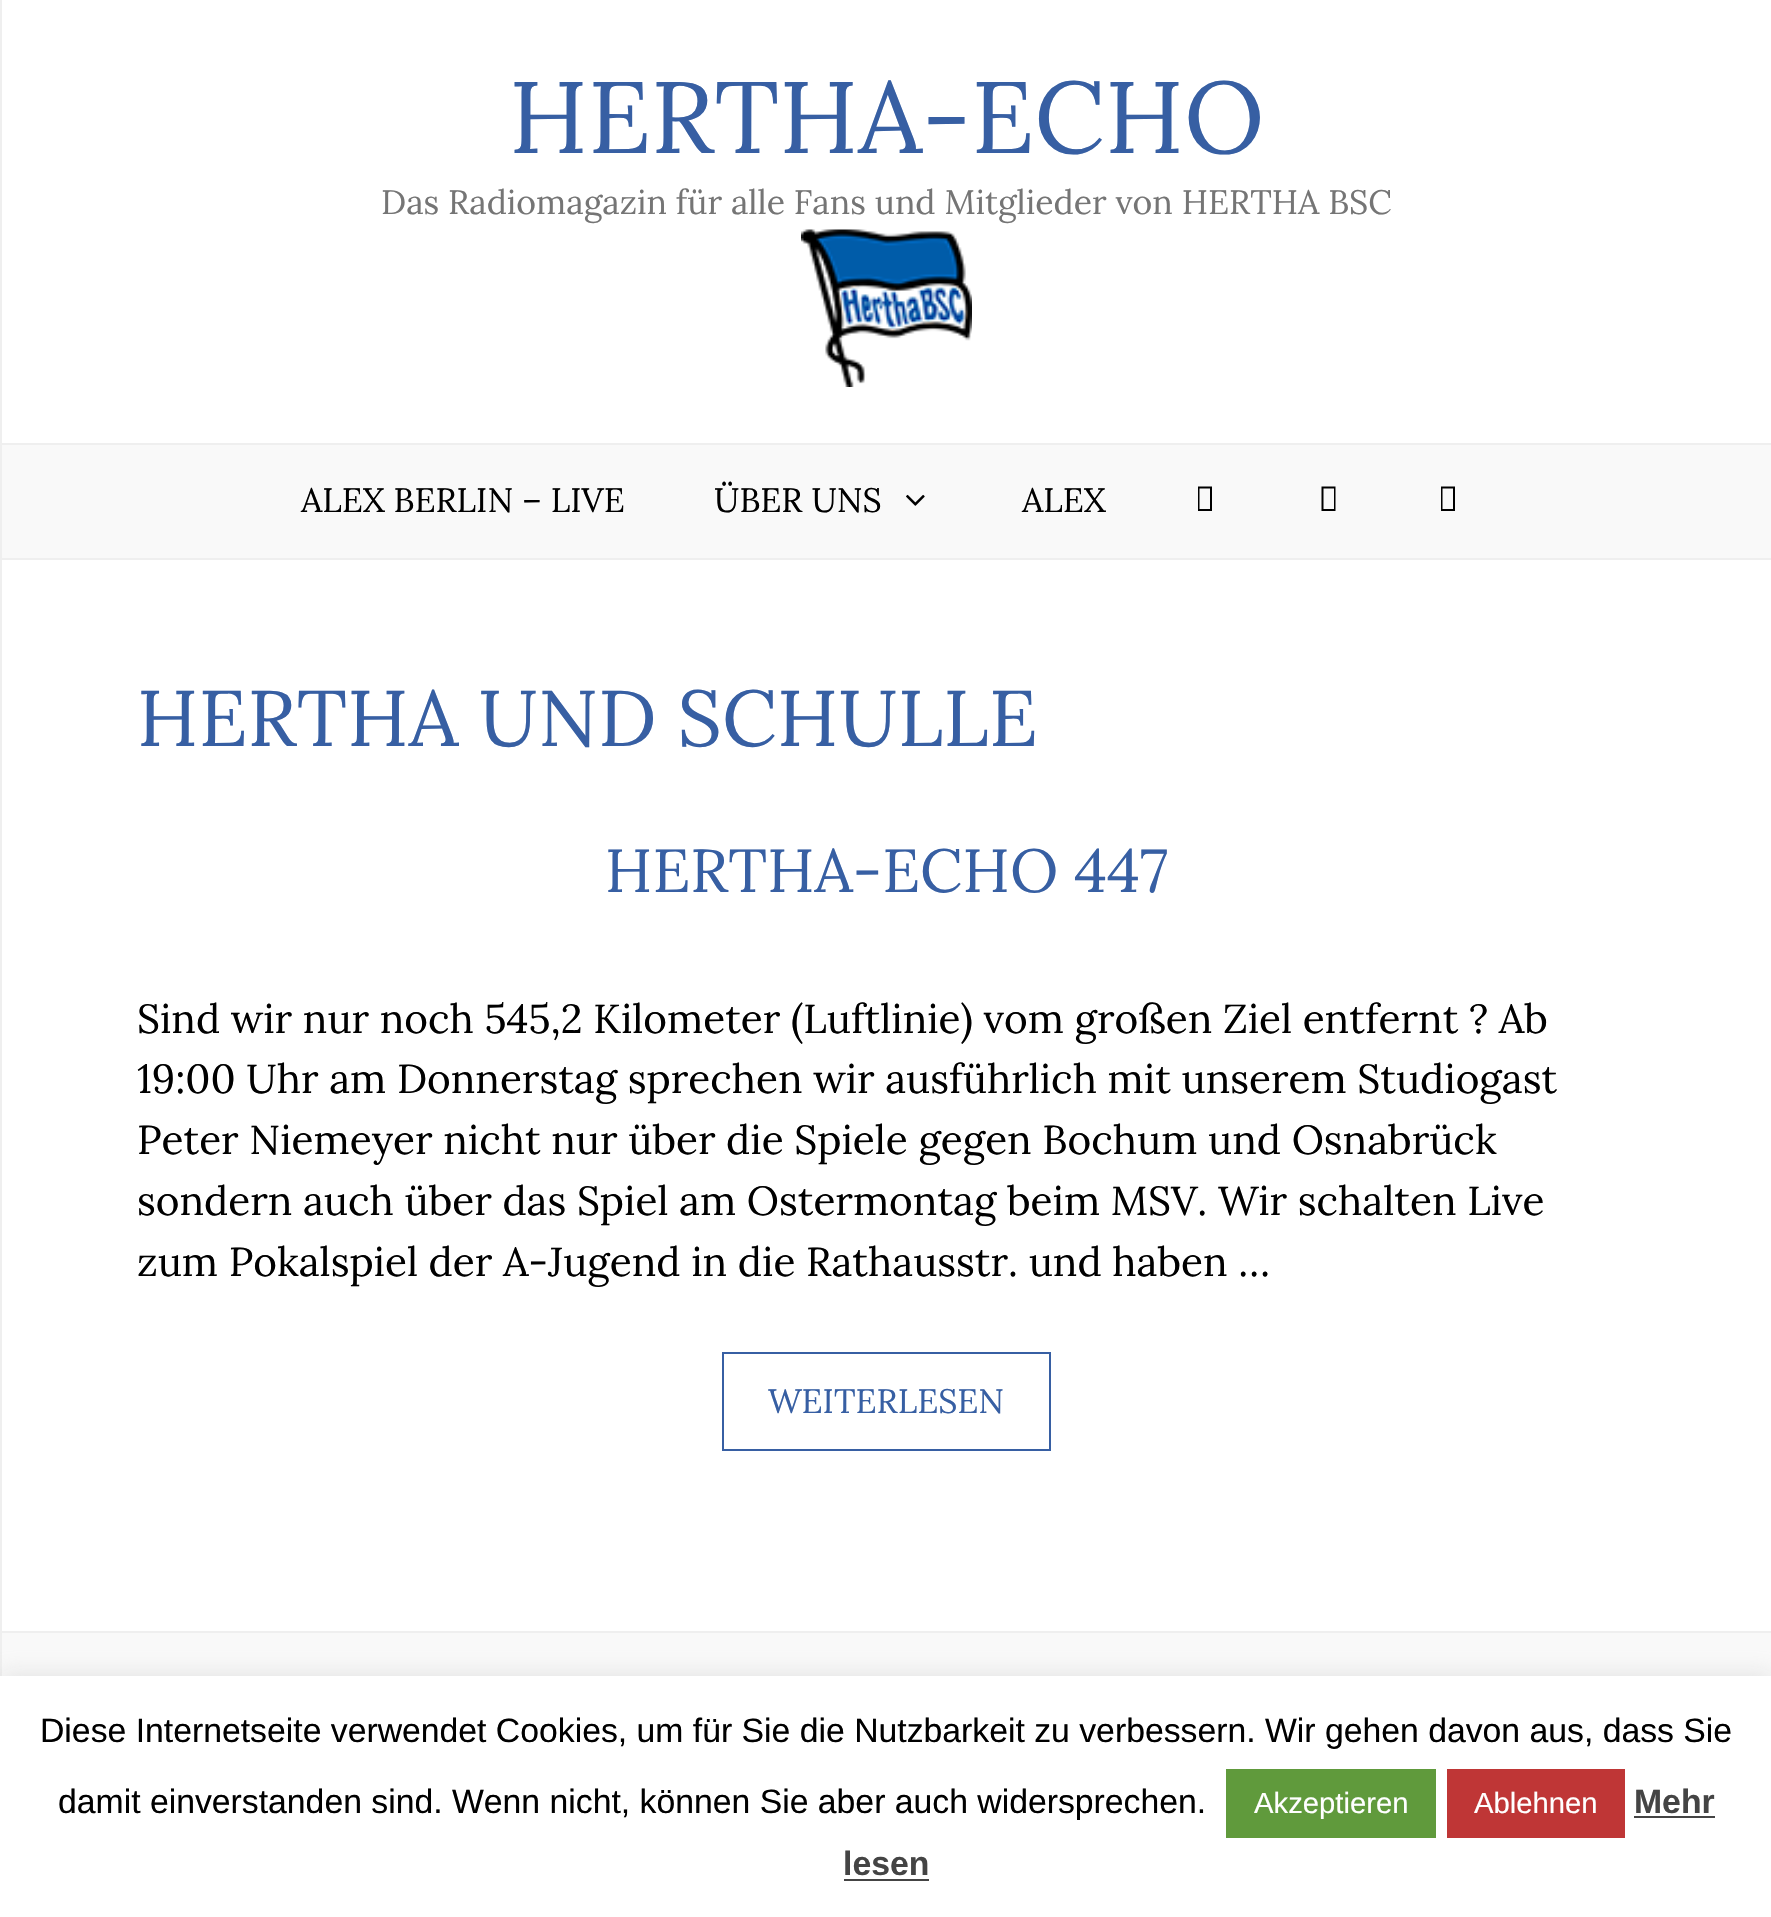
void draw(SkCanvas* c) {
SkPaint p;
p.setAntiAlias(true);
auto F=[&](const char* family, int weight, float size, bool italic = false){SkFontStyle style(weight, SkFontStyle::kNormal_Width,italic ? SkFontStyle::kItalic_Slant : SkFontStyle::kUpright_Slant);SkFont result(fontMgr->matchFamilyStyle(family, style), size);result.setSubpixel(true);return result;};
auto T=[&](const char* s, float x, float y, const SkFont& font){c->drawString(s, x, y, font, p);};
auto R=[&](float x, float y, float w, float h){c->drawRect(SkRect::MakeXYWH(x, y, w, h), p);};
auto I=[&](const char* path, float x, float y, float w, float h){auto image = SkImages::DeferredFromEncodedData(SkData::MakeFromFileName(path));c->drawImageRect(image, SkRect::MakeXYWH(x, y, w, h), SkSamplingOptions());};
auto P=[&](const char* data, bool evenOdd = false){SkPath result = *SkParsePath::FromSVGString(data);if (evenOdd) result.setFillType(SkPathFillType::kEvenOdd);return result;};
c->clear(0xffefefef);
p.setColor(0xffffffff);
R(2,0,1769,443);
auto f1 = F("Lora",400,101.25);
p.setColor(0xff375fa3);
T("HERTHA-ECHO",509,153,f1);
auto f2 = F("Lora",400,33.75);
p.setColor(0xff757575);
T("Das Radiomagazin für alle Fans und Mitglieder von HERTHA BSC",381,214,f2);
I("1.png",801,229,171,158);
p.setColor(0xfff9f9f9);
R(2,445,1769,113);
p.setColor(0xff000000);
T("ALEX BERLIN – LIVE",301,512,f2);
T("ÜBER UNS",714,512,f2);
I("2.png",906,494,19,12);
T("ALEX",1022,512,f2);
c->drawPath(P("M1198 511v-24.5h14v24.5zm1.5-2h10.5v-20.5h-10.5z"),p);
c->drawPath(P("M1321.5 511v-24.5h14v24.5zm2-2h10.5v-20.5h-10.5z"),p);
c->drawPath(P("M1441 511v-24.5h14v24.5zm1.5-2h10.5v-20.5h-10.5z"),p);
p.setColor(0xffffffff);
R(2,560,1769,1071);
auto f3 = F("Lora",400,78.75);
p.setColor(0xff375fa3);
T("HERTHA UND SCHULLE",137,746,f3);
auto f4 = F("Lora",400,60.75);
T("HERTHA-ECHO 447",605,892,f4);
auto f5 = F("Lora",400,40.5);
p.setColor(0xff000000);
T("Sind wir nur noch 545,2 Kilometer (Luftlinie) vom großen Ziel entfernt ? Ab",137,1033,f5);
T("19:00 Uhr am Donnerstag sprechen wir ausführlich mit unserem Studiogast",137,1093,f5);
T("Peter Niemeyer nicht nur über die Spiele gegen Bochum und Osnabrück",137,1154,f5);
T("sondern auch über das Spiel am Ostermontag beim MSV. Wir schalten Live",137,1215,f5);
T("zum Pokalspiel der A-Jugend in die Rathausstr. und haben …",137,1276,f5);
p.setStroke(true);
p.setStrokeWidth(2);
p.setColor(0xff375fa3);
c->drawRect(SkRect::MakeXYWH(723,1353,327,97),p);
p.setStroke(false);
T("WEITERLESEN",768,1413,f2);
p.setColor(0xfff9f9f9);
R(2,1633,1769,43);
p.setColor(0x4dacabab);
p.setMaskFilter(SkMaskFilter::MakeBlur(kNormal_SkBlurStyle, 11));
c->drawRect(SkRect::MakeXYWH(0,1674,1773,241),p);
p.setMaskFilter(nullptr);
p.setColor(0xffffffff);
R(0,1676,1771,241);
auto f6 = F("Liberation Sans",400,33.75);
p.setColor(0xff000000);
T("Diese Internetseite verwendet Cookies, um für Sie die Nutzbarkeit zu verbessern. Wir gehen davon aus, dass Sie",40,1742,f6);
T("damit einverstanden sind. Wenn nicht, können Sie aber auch widersprechen.",58,1813,f6);
p.setColor(0xff609a3c);
R(1226,1769,210,69);
auto f7 = F("Liberation Sans",400,29.25);
p.setColor(0xffffffff);
T("Akzeptieren",1254,1813,f7);
p.setColor(0xffbf3636);
R(1447,1769,178,69);
p.setColor(0xffffffff);
T("Ablehnen",1474,1813,f7);
auto f8 = F("Liberation Sans",700,33.75);
p.setColor(0xff444444);
T("Mehr",1634,1813,f8);
R(1634,1816,81,2);
T("lesen",843,1875,f8);
R(844,1879,85,2);
}
